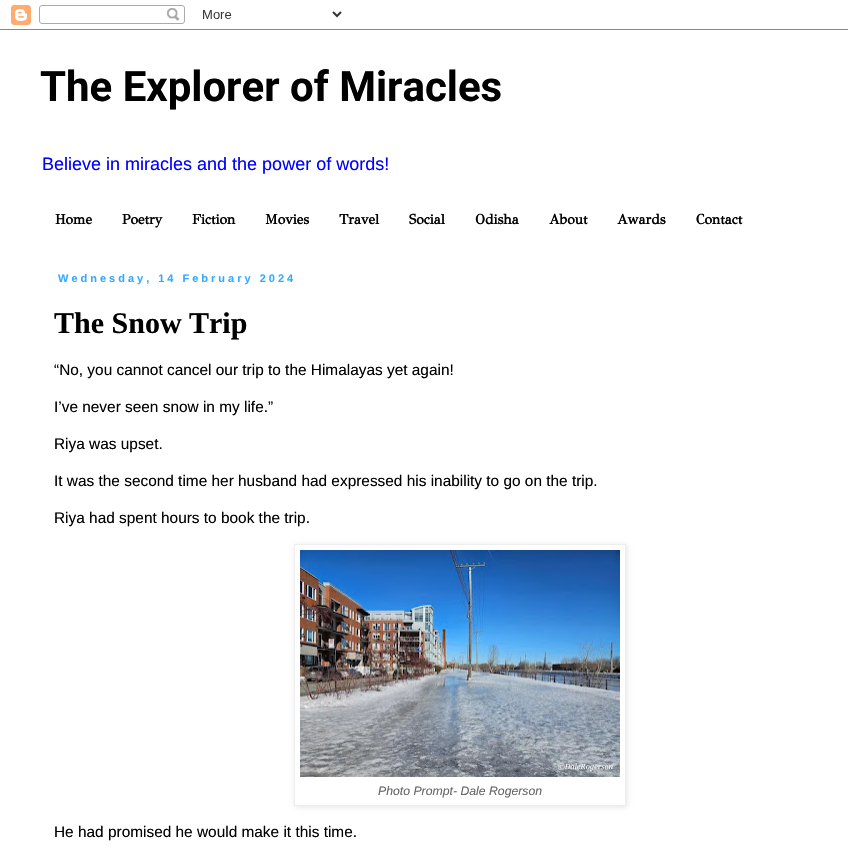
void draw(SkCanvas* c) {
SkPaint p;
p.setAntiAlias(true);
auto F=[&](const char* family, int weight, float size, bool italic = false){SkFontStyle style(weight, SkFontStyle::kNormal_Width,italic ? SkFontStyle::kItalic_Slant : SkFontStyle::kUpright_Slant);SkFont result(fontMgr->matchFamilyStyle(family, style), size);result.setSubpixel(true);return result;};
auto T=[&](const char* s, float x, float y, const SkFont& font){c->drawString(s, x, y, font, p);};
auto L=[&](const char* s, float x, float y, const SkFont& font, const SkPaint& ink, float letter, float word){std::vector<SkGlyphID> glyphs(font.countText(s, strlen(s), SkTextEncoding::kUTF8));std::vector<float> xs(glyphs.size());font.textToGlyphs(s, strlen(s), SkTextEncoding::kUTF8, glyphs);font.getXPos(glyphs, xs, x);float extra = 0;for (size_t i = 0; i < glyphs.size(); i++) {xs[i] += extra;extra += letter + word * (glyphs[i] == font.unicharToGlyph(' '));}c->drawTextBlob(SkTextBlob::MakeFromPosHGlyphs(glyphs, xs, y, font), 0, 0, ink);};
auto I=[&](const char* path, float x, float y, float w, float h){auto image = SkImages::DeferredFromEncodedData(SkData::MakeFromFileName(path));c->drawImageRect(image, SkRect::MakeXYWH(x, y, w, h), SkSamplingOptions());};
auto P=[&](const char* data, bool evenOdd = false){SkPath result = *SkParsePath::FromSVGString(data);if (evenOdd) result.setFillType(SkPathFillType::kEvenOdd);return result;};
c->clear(0xffffffff);
I("1.png",0,5,848,25);
auto f1 = F("Roboto",700,42);
p.setColor(0xff000000);
T("The Explorer of Miracles",40,101,f1);
auto f2 = F("Liberation Sans",400,18);
p.setColor(0xff0000ff);
T("Believe in miracles and the power of words!",42,170,f2);
auto f3 = F("GFS Didot",700,14);
p.setColor(0xff000000);
T("Home",55,224,f3);
T("Poetry",122,224,f3);
T("Fiction",192,224,f3);
T("Movies",265,224,f3);
T("Travel",339,224,f3);
T("Social",409,224,f3);
T("Odisha",475,224,f3);
T("About",549,224,f3);
T("Awards",617,224,f3);
T("Contact",696,224,f3);
auto f4 = F("Liberation Sans",700,11);
p.setColor(0xff33aaff);
L("Wednesday, 14 February 2024",58,282,f4,p,3,0);
auto f5 = F("Liberation Serif",700,30);
p.setColor(0xff000000);
T("The Snow Trip",54,333,f5);
auto f6 = F("Liberation Sans",400,15.4);
T("“No, you cannot cancel our trip to the Himalayas yet again!",54,375,f6);
T("I’ve never seen snow in my life.”",54,412,f6);
T("Riya was upset.",54,449,f6);
T("It was the second time her husband had expressed his inability to go on the trip.",54,486,f6);
T("Riya had spent hours to book the trip.",54,523,f6);
c->save();
c->clipPath(P("M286 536h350v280h-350zm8 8h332v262h-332z",true),true);
p.setColor(0x1a000000);
p.setMaskFilter(SkMaskFilter::MakeBlur(kNormal_SkBlurStyle, 2.5));
c->drawRect(SkRect::MakeXYWH(295,545,332,262),p);
p.setMaskFilter(nullptr);
c->restore();
p.setStroke(true);
p.setStrokeWidth(1);
p.setColor(0xffeeeeee);
c->drawRect(SkRect::MakeXYWH(294.5,544.5,331,261),p);
I("2.png",300,550,320,227);
auto f7 = F("Liberation Sans",400,12.25,true);
p.setStroke(false);
p.setColor(0xff666666);
T("Photo Prompt- Dale Rogerson",378,795,f7);
p.setColor(0xff000000);
T("He had promised he would make it this time.",54,837,f6);
}
